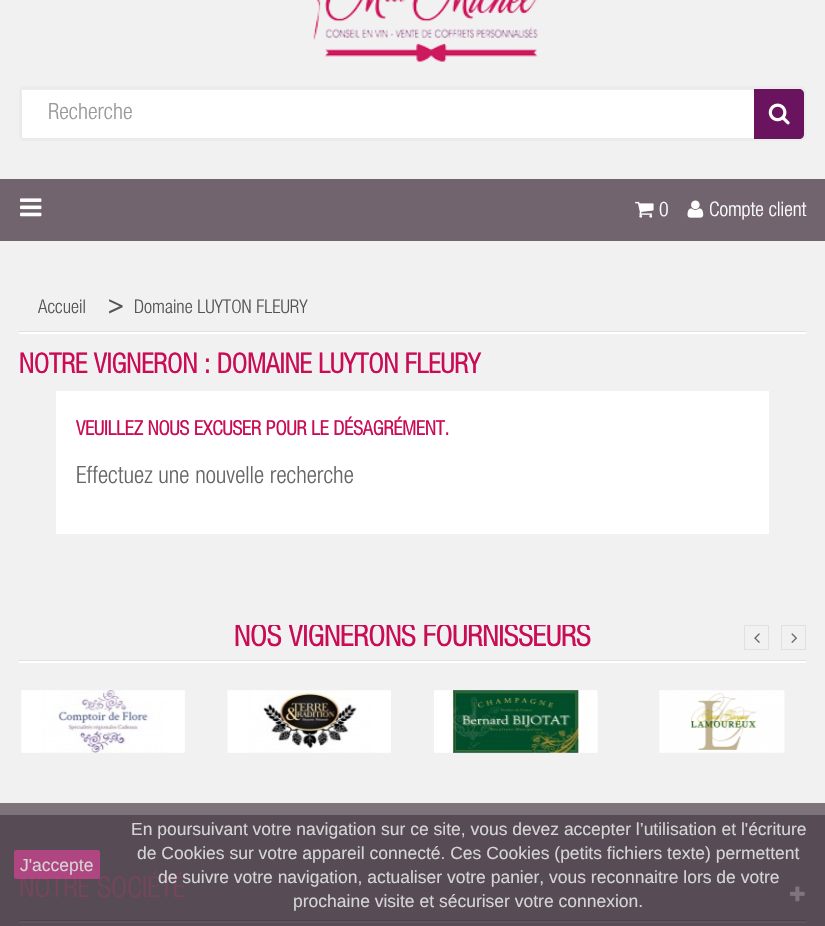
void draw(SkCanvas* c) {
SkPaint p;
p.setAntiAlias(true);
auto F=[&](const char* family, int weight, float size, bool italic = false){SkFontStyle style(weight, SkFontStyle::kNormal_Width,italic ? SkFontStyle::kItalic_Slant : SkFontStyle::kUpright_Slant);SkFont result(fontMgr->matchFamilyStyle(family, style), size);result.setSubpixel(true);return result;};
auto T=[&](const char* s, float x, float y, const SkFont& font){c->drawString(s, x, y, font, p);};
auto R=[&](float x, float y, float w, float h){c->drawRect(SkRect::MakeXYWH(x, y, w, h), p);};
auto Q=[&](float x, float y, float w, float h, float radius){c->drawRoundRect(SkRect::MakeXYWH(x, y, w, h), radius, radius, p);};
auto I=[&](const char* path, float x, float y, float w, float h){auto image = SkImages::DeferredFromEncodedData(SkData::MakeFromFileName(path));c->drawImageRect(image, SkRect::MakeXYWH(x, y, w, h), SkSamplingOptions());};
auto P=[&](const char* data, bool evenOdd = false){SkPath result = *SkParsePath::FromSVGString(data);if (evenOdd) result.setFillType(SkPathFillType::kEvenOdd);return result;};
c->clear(0xfff1f1f1);
p.setColor(0xff7e737b);
R(0,803,825,12);
I("1.png",313,0,225,62);
p.setStroke(true);
p.setStrokeWidth(3);
p.setColor(0xffebebeb);
c->drawRoundRect(SkRect::MakeXYWH(20.5,87.5,784,52),4.5,4.5,p);
p.setStroke(false);
p.setColor(0xffffffff);
c->drawRect(SkRect::MakeXYWH(21.5,89.5,782,49),p);
p.setStroke(true);
p.setStrokeWidth(1);
p.setColor(0xffebebeb);
c->drawRect(SkRect::MakeXYWH(21.5,89.5,782,49),p);
auto f1 = F("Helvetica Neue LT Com",300,22.5);
p.setStroke(false);
p.setColor(0xff999999);
T("Recherche",48,119,f1);
p.setColor(0xff6a135e);
c->drawPath(P("M754 89h45c3 0 5 2 5 5v40c0 3-2 5-5 5h-45z"),p);
I("2.png",768,103,22,22);
p.setColor(0xff71646f);
R(0,179,825,62);
I("3.png",20,198,22,19);
I("4.png",635,201,19,17);
auto f2 = F("Helvetica Neue LT Com",300,20);
p.setColor(0xffffffff);
T("0",659,216,f2);
I("5.png",687,200,17,18);
T("Compte client",709,216,f2);
R(19,332,787,2);
p.setColor(0xffe2dfdf);
R(19,331,787,1);
auto f3 = F("Helvetica Neue LT Com",300,18.75);
p.setColor(0xff555555);
T("Accueil",38,313,f3);
auto f4 = F("Helvetica Neue LT Com",700,25);
T(">",108,313,f4);
T("Domaine LUYTON FLEURY",134,313,f3);
auto f5 = F("Helvetica Neue LT Com",700,27.5);
p.setColor(0xffca0c55);
T("NOTRE VIGNERON : DOMAINE LUYTON FLEURY",19,373,f5);
p.setColor(0xffffffff);
R(56,391,713,143);
auto f6 = F("Helvetica Neue LT Com",700,20);
p.setColor(0xffca0c55);
T("VEUILLEZ NOUS EXCUSER POUR LE DÉSAGRÉMENT.",76,435,f6);
auto f7 = F("Helvetica Neue LT Com",300,23.75);
p.setColor(0xff666666);
T("Effectuez une nouvelle recherche",76,483,f7);
p.setStroke(true);
p.setColor(0xffe2dfdf);
c->drawRect(SkRect::MakeXYWH(744.5,625.5,24,24),p);
I("6.png",754,633,6,10);
c->drawRect(SkRect::MakeXYWH(781.5,625.5,24,24),p);
I("7.png",791,633,6,10);
I("8.png",21,690,164,63);
I("9.png",227,690,164,63);
I("10.png",434,690,164,63);
I("11.png",659,690,126,63);
p.setStroke(false);
p.setColor(0xffffffff);
R(19,661,787,2);
p.setColor(0xffe2dfdf);
R(19,660,787,1);
c->save();
c->clipRect(SkRect::MakeXYWH(19,625,787,140));
auto f8 = F("Helvetica Neue LT Com",700,30);
p.setColor(0xffca0c55);
T("NOS VIGNERONS FOURNISSEURS",234,646,f8);
c->restore();
p.setColor(0xff574c55);
R(0,815,825,111);
p.setColor(0xff5f545d);
R(19,921,787,2);
p.setColor(0xff4e424a);
R(19,920,787,1);
auto f9 = F("Helvetica Neue LT Com",300,28.75);
p.setColor(0xff76455b);
T("NOTRE SOCIÉTÉ",19,897,f9);
I("12.png",790,886,15,16);
p.setColor(0xccc4438c);
Q(14,850,86,29,2.5);
auto f10 = F("Liberation Sans",400,17.5);
p.setColor(0xffd5d5d6);
T("J'accepte",20,871,f10);
T("En poursuivant votre navigation sur ce site, vous devez accepter l’utilisation et l'écriture",131,835,f10);
T("de Cookies sur votre appareil connecté. Ces Cookies (petits fichiers texte) permettent",137,859,f10);
T("de suivre votre navigation, actualiser votre panier, vous reconnaitre lors de votre",158,883,f10);
T("prochaine visite et sécuriser votre connexion.",293,907,f10);
}
